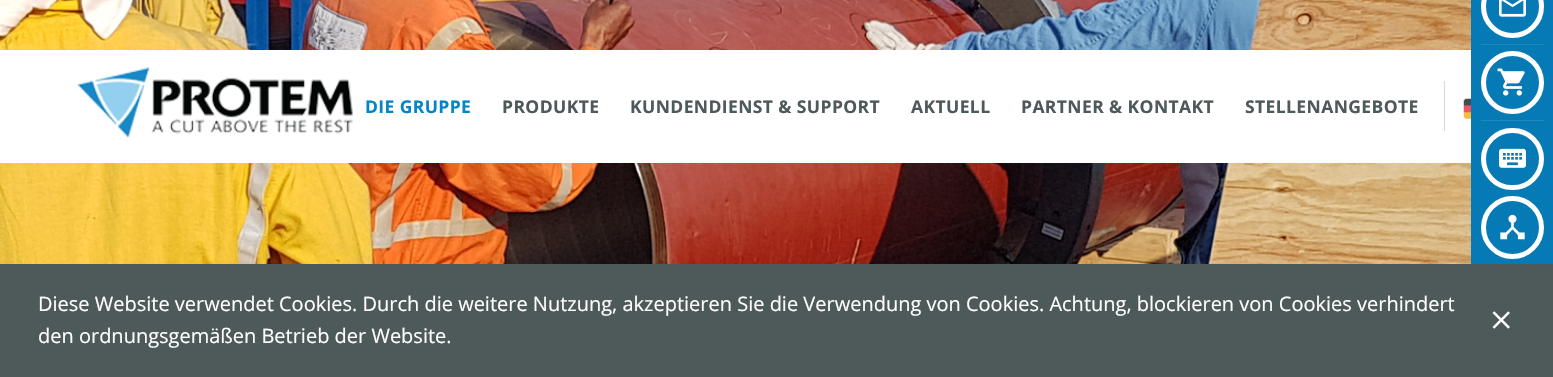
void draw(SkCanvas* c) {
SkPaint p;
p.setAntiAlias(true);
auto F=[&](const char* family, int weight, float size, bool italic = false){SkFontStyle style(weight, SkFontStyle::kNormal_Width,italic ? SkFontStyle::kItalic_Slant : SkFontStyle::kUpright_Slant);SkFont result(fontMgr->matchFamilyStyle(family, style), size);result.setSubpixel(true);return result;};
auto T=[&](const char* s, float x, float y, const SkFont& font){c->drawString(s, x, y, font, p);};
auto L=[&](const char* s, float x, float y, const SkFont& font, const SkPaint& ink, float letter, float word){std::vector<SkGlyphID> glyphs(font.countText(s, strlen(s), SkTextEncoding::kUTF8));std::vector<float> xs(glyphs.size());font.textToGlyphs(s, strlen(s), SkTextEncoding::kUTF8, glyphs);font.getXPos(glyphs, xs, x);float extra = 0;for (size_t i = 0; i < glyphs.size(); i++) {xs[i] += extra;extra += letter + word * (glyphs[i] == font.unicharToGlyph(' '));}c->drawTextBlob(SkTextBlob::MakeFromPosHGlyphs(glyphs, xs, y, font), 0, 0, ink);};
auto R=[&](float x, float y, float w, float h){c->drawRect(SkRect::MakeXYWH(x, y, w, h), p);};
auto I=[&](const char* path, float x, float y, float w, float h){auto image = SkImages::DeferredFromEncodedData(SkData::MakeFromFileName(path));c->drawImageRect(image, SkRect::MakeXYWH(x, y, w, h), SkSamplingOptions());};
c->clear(0xffffffff);
I("1.png",0,0,1471,264);
p.setColor(0xffffffff);
R(0,50,1471,113);
I("2.png",77,67,276,71);
auto f1 = F("Open Sans",700,17.5);
p.setColor(0xff0585c5);
L("DIE GRUPPE",365,113,f1,p,.4,0);
p.setColor(0xff4e595a);
L("PRODUKTE",502,113,f1,p,.4,0);
L("KUNDENDIENST & SUPPORT",630,113,f1,p,.4,0);
L("AKTUELL",911,113,f1,p,.4,0);
L("PARTNER & KONTAKT",1021,113,f1,p,.4,0);
L("STELLENANGEBOTE",1245,113,f1,p,.4,0);
p.setColor(0xffd4dad4);
R(1444,81,1,50);
I("3.png",1463,98,8,21);
p.setColor(0xff057ab5);
R(1471,0,82,264);
p.setColor(0xff1e87bc);
R(1481,44,63,1);
p.setStroke(true);
p.setStrokeWidth(5);
p.setColor(0xffffffff);
c->drawCircle(1512.5,6.5,29,p);
I("4.png",1499,0,27,17);
p.setStroke(false);
p.setColor(0xff1e87bc);
R(1481,120,63,1);
p.setStroke(true);
p.setColor(0xffffffff);
c->drawCircle(1512.5,82.5,29,p);
I("5.png",1497,68,28,28);
c->drawRoundRect(SkRect::MakeXYWH(1483.5,130.5,58,57),28.5,28.5,p);
I("6.png",1499,148,27,20);
c->drawCircle(1512.5,227.5,29,p);
I("7.png",1500,214,25,26);
p.setStroke(false);
p.setColor(0xff4e595a);
R(0,264,1553,113);
auto f2 = F("Open Sans",400,20);
p.setColor(0xffffffff);
T("Diese Website verwendet Cookies. Durch die weitere Nutzung, akzeptieren Sie die Verwendung von Cookies. Achtung, blockieren von Cookies verhindert",38,311,f2);
I("8.png",1492,311,18,18);
T("den ordnungsgemäßen Betrieb der Website.",38,343,f2);
}
